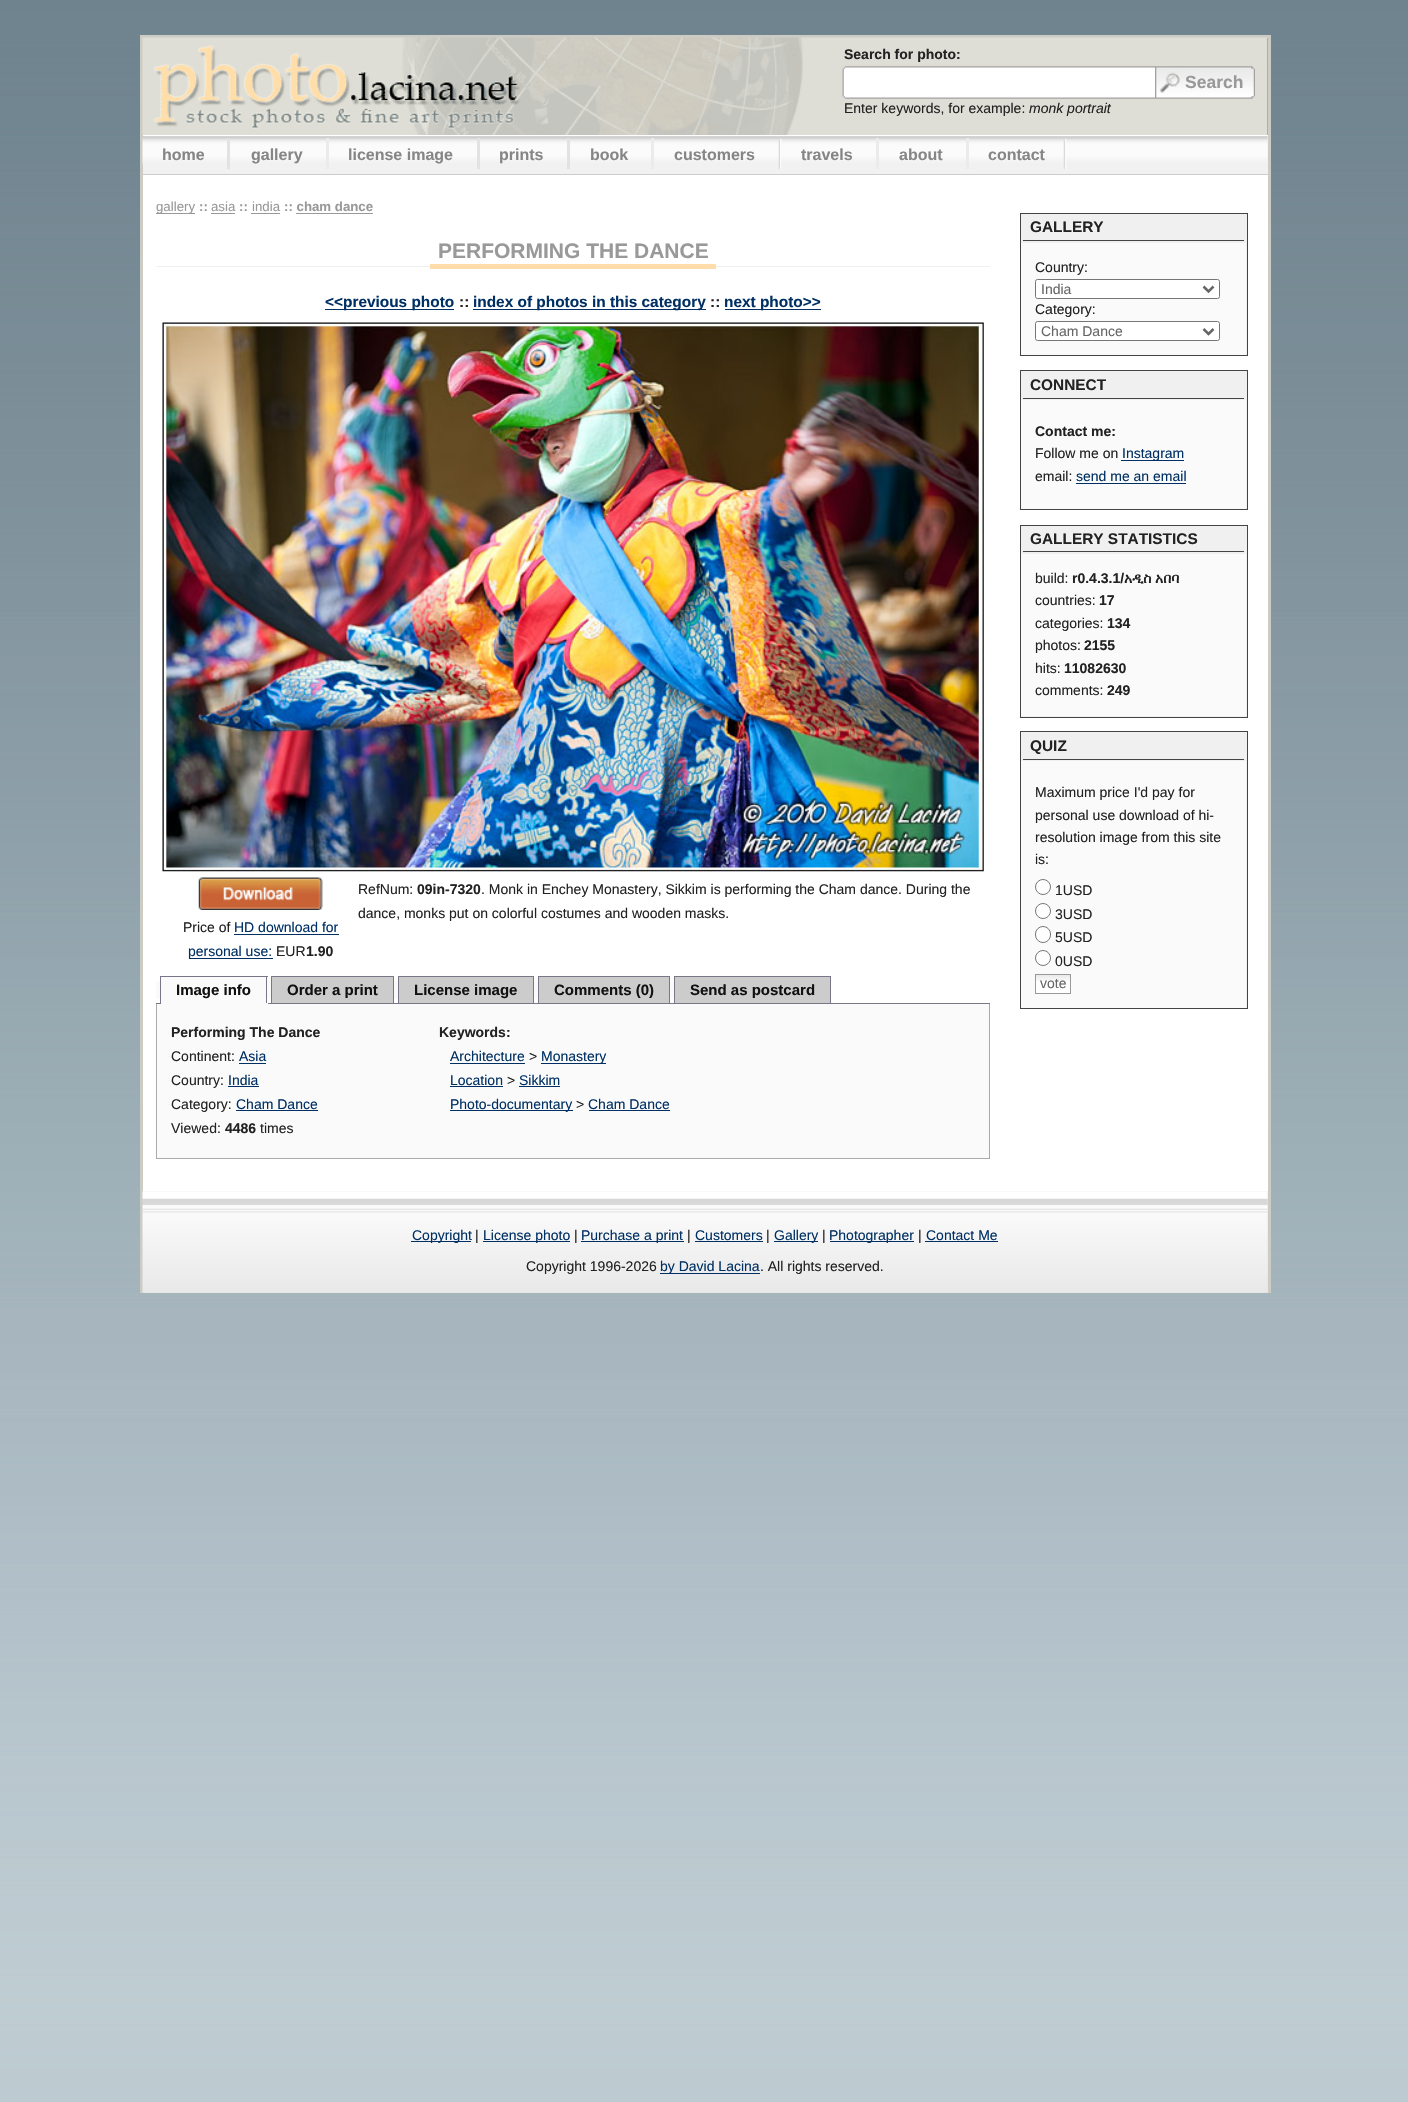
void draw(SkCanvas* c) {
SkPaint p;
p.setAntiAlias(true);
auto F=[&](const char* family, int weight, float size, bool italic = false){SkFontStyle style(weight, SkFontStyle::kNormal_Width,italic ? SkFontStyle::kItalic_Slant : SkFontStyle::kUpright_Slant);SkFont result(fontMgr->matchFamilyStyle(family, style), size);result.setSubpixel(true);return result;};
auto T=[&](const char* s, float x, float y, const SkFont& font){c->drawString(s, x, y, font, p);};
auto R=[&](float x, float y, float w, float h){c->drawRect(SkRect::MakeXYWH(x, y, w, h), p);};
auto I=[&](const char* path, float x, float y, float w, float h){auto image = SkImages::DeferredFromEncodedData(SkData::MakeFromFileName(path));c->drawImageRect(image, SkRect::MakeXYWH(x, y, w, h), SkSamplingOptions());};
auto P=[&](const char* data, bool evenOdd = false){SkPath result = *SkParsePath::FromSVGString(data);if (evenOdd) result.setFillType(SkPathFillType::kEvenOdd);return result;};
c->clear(0xffffffff);
I("1.png",0,0,1408,2102);
p.setColor(0xffccccc5);
R(140,35,1130,3);
R(1268,35,3,1258);
R(140,35,3,1258);
I("2.png",142,37,1126,98);
auto f1 = F("Liberation Sans",700,14);
p.setColor(0xff222222);
T("Search for photo:",844,59,f1);
I("3.png",842,66,313,33);
I("4.png",1155,66,100,33);
auto f2 = F("Liberation Sans",700,17.5);
p.setColor(0xff999999);
T("Search",1185,88,f2);
auto f3 = F("Liberation Sans",400,14);
p.setColor(0xff222222);
T("Enter keywords, for example:",844,113,f3);
auto f4 = F("Liberation Sans",400,14,true);
T("monk portrait",1029,113,f4);
p.setColor(0xfff1f1f1);
R(143,136,1125,38);
I("5.png",142,136,1126,28);
p.setColor(0xffffffff);
R(143,135,1125,1);
p.setColor(0xffcccccc);
R(143,174,1125,1);
auto f5 = F("Liberation Sans",700,16);
p.setColor(0xff868686);
T("home",162,160,f5);
p.setColor(0xffe3e1e1);
R(227,138,3,31);
p.setColor(0xff868686);
T("gallery",251,160,f5);
p.setColor(0xffecebeb);
R(326,138,3,31);
p.setColor(0xff868686);
T("license image",348,160,f5);
p.setColor(0xffe3e1e1);
R(477,138,3,31);
p.setColor(0xff868686);
T("prints",499,160,f5);
p.setColor(0xffe3e1e1);
R(567,138,3,31);
p.setColor(0xff868686);
T("book",590,160,f5);
p.setColor(0xffecebeb);
R(651,138,3,31);
p.setColor(0xff868686);
T("customers",674,160,f5);
I("6.png",778,138,4,31);
T("travels",801,160,f5);
p.setColor(0xffecebeb);
R(876,138,3,31);
p.setColor(0xff868686);
T("about",899,160,f5);
p.setColor(0xffecebeb);
R(966,138,3,31);
p.setColor(0xff868686);
T("contact",988,160,f5);
I("6.png",1063,138,4,31);
p.setColor(0xffffffff);
R(143,175,1125,1016);
p.setColor(0xff999999);
R(156,213,39,1);
auto f6 = F("Liberation Sans",400,13.25);
T("gallery",156,211,f6);
auto f7 = F("Liberation Sans",700,13.25);
T("::",199,211,f7);
T("asia",211,211,f6);
R(211,213,24,1);
T("::",239,211,f7);
T("india",252,211,f6);
R(251,213,29,1);
T(":: cham dance",284,211,f7);
R(296,213,77,1);
p.setColor(0xfff0f0f0);
R(156,266,834,1);
auto f8 = F("Liberation Sans",700,21);
p.setColor(0xff999999);
T("PERFORMING THE DANCE",438,258,f8);
p.setColor(0xffffddaa);
R(430,264,286,5);
p.setColor(0xff003063);
R(325,309,129,1);
auto f9 = F("Liberation Sans",700,15.4);
T("<<previous photo",325,307,f9);
p.setColor(0xff222222);
T("::",459,307,f9);
p.setColor(0xff003063);
R(473,309,233,1);
T("index of photos in this category",473,307,f9);
p.setColor(0xff222222);
T("::",710,307,f9);
p.setColor(0xff003063);
R(725,309,96,1);
T("next photo>>",724,307,f9);
I("7.png",162,322,822,550);
p.setColor(0xff222222);
T("RefNum:",358,894,f3);
T("09in-7320",417,894,f1);
T(". Monk in Enchey Monastery, Sikkim is performing the Cham dance. During the",481,894,f3);
T("dance, monks put on colorful costumes and wooden masks.",358,918,f3);
I("8.png",198,877,125,33);
T("Price of",183,932,f3);
p.setColor(0xff003063);
T("HD download for",234,932,f3);
R(234,934,105,1);
R(189,958,84,1);
T("personal use:",188,956,f3);
p.setColor(0xff222222);
T("EUR",276,956,f3);
T("1.90",306,956,f1);
p.setColor(0xff777788);
R(156,1003,834,1);
p.setColor(0xfffafafa);
R(161,977,107,26);
auto f10 = F("Liberation Sans",700,15);
p.setColor(0xff111111);
T("Image info",176,995,f10);
p.setColor(0xfffafafa);
R(156,981,4,18);
p.setColor(0xff777788);
R(160,976,108,1);
R(266,976,1,28);
p.setColor(0xfffafafa);
R(160,1003,108,1);
p.setColor(0xff777788);
R(160,976,1,28);
p.setColor(0xffcccccc);
R(272,977,121,26);
p.setColor(0xff111111);
T("Order a print",287,995,f10);
p.setColor(0xfffafafa);
R(268,981,3,18);
p.setColor(0xff777788);
R(271,976,123,1);
R(393,976,1,27);
R(271,976,1,27);
p.setColor(0xffcccccc);
R(399,977,134,26);
p.setColor(0xff111111);
T("License image",414,995,f10);
p.setColor(0xfffafafa);
R(394,981,4,18);
p.setColor(0xff777788);
R(398,976,136,1);
R(533,976,1,27);
R(398,976,1,27);
p.setColor(0xffcccccc);
R(539,977,130,26);
p.setColor(0xff111111);
T("Comments (0)",554,995,f10);
p.setColor(0xfffafafa);
R(534,981,4,18);
p.setColor(0xff777788);
R(538,976,132,1);
R(669,976,1,27);
R(538,976,1,27);
p.setColor(0xffcccccc);
R(675,977,155,26);
p.setColor(0xff111111);
T("Send as postcard",690,995,f10);
p.setColor(0xfffafafa);
R(670,981,4,18);
p.setColor(0xff777788);
R(674,976,157,1);
R(830,976,1,27);
R(674,976,1,27);
p.setColor(0xfffafafa);
R(157,1004,832,154);
p.setColor(0xffaaaaaa);
R(989,1004,1,155);
R(156,1158,834,1);
R(156,1004,1,155);
p.setColor(0xff222222);
T("Performing The Dance",171,1037,f1);
T("Continent:",171,1061,f3);
p.setColor(0xff003063);
T("Asia",239,1061,f3);
R(239,1063,27,1);
p.setColor(0xff222222);
T("Country:",171,1085,f3);
p.setColor(0xff003063);
T("India",228,1085,f3);
R(228,1086,31,1);
p.setColor(0xff222222);
T("Category:",171,1109,f3);
p.setColor(0xff003063);
T("Cham Dance",236,1109,f3);
R(236,1110,82,1);
p.setColor(0xff222222);
T("Viewed:",171,1133,f3);
T("4486",225,1133,f1);
T("times",260,1133,f3);
T("Keywords:",439,1037,f1);
p.setColor(0xff003063);
T("Architecture",450,1061,f3);
R(450,1063,75,1);
p.setColor(0xff222222);
T(">",529,1061,f3);
p.setColor(0xff003063);
R(541,1063,65,1);
T("Monastery",541,1061,f3);
T("Location",450,1085,f3);
R(450,1086,53,1);
p.setColor(0xff222222);
T(">",507,1085,f3);
p.setColor(0xff003063);
T("Sikkim",519,1085,f3);
R(519,1086,41,1);
R(450,1110,123,1);
T("Photo-documentary",450,1109,f3);
p.setColor(0xff222222);
T(">",576,1109,f3);
p.setColor(0xff003063);
T("Cham Dance",588,1109,f3);
R(589,1110,81,1);
p.setColor(0xfff0f0f0);
c->drawRect(SkRect::MakeXYWH(1020.5,213.5,227,142),p);
p.setStroke(true);
p.setStrokeWidth(1);
p.setColor(0xff444444);
c->drawRect(SkRect::MakeXYWH(1020.5,213.5,227,142),p);
p.setStroke(false);
R(1023,240,221,1);
p.setColor(0xff222222);
T("GALLERY",1030,232,f9);
p.setColor(0xfffafafa);
R(1021,243,225,112);
p.setColor(0xff222222);
T("Country:",1035,272,f3);
p.setColor(0xffffffff);
c->drawRoundRect(SkRect::MakeXYWH(1035.5,279.5,184,19),2,2,p);
p.setStroke(true);
p.setColor(0xff767676);
c->drawRoundRect(SkRect::MakeXYWH(1035.5,279.5,184,19),2,2,p);
p.setStrokeWidth(2.5);
p.setColor(0xff666666);
c->drawPath(P("M1203.5 286.5l5 5l5-5"),p);
p.setStroke(false);
T("India",1041,294,f3);
p.setColor(0xff222222);
T("Category:",1035,314,f3);
p.setColor(0xffffffff);
c->drawRoundRect(SkRect::MakeXYWH(1035.5,321.5,184,19),2,2,p);
p.setStroke(true);
p.setStrokeWidth(1);
p.setColor(0xff767676);
c->drawRoundRect(SkRect::MakeXYWH(1035.5,321.5,184,19),2,2,p);
p.setStrokeWidth(2.5);
p.setColor(0xff666666);
c->drawPath(P("M1203.5 329l5 5l5-5"),p);
p.setStroke(false);
T("Cham Dance",1041,336,f3);
p.setColor(0xfff0f0f0);
c->drawRect(SkRect::MakeXYWH(1020.5,370.5,227,139),p);
p.setStroke(true);
p.setStrokeWidth(1);
p.setColor(0xff444444);
c->drawRect(SkRect::MakeXYWH(1020.5,370.5,227,139),p);
p.setStroke(false);
R(1023,398,221,1);
p.setColor(0xff222222);
T("CONNECT",1030,390,f9);
p.setColor(0xfffafafa);
R(1021,400,225,109);
p.setColor(0xff222222);
T("Contact me:",1035,436,f1);
T("Follow me on",1035,458,f3);
p.setColor(0xff003063);
R(1121,460,63,1);
T("Instagram",1122,458,f3);
p.setColor(0xff222222);
T("email:",1035,481,f3);
p.setColor(0xff003063);
T("send me an email",1076,481,f3);
R(1076,483,110,1);
p.setColor(0xfff0f0f0);
c->drawRect(SkRect::MakeXYWH(1020.5,525.5,227,192),p);
p.setStroke(true);
p.setColor(0xff444444);
c->drawRect(SkRect::MakeXYWH(1020.5,525.5,227,192),p);
p.setStroke(false);
R(1023,551,221,1);
p.setColor(0xff222222);
T("GALLERY STATISTICS",1030,544,f9);
p.setColor(0xfffafafa);
R(1021,554,225,162);
p.setColor(0xff222222);
T("build:",1035,583,f3);
T("r0.4.3.1/",1072,583,f1);
auto f11 = F("FreeSerif",700,14);
T("አዲስ አበባ",1124,583,f11);
T("countries:",1035,605,f3);
T("17",1099,605,f1);
T("categories:",1035,628,f3);
T("134",1107,628,f1);
T("photos:",1035,650,f3);
T("2155",1084,650,f1);
T("hits:",1035,673,f3);
T("11082630",1064,673,f1);
T("comments:",1035,695,f3);
T("249",1107,695,f1);
p.setColor(0xfff0f0f0);
c->drawRect(SkRect::MakeXYWH(1020.5,731.5,227,277),p);
p.setStroke(true);
p.setColor(0xff444444);
c->drawRect(SkRect::MakeXYWH(1020.5,731.5,227,277),p);
p.setStroke(false);
R(1023,759,221,1);
p.setColor(0xff222222);
T("QUIZ",1030,751,f9);
p.setColor(0xfffafafa);
R(1021,761,225,247);
p.setColor(0xff222222);
T("Maximum price I'd pay for",1035,797,f3);
T("personal use download of hi-",1035,820,f3);
T("resolution image from this site",1035,842,f3);
T("is:",1035,864,f3);
p.setColor(0xffffffff);
c->drawCircle(1043,887,7.5,p);
p.setStroke(true);
p.setColor(0xff767676);
c->drawCircle(1043,887,7.5,p);
p.setStroke(false);
p.setColor(0xff222222);
T("1USD",1055,895,f3);
p.setColor(0xffffffff);
c->drawCircle(1043,911,7.5,p);
p.setStroke(true);
p.setColor(0xff767676);
c->drawCircle(1043,911,7.5,p);
p.setStroke(false);
p.setColor(0xff222222);
T("3USD",1055,919,f3);
p.setColor(0xffffffff);
c->drawRoundRect(SkRect::MakeXYWH(1035.5,926.5,15,16),7.5,7.5,p);
p.setStroke(true);
p.setColor(0xff767676);
c->drawRoundRect(SkRect::MakeXYWH(1035.5,926.5,15,16),7.5,7.5,p);
p.setStroke(false);
p.setColor(0xff222222);
T("5USD",1055,942,f3);
p.setColor(0xffffffff);
c->drawCircle(1043,958,7.5,p);
p.setStroke(true);
p.setColor(0xff767676);
c->drawCircle(1043,958,7.5,p);
p.setStroke(false);
p.setColor(0xff222222);
T("0USD",1055,966,f3);
p.setColor(0xffffffff);
R(1036,981,34,12);
I("9.png",1036,975,34,6);
p.setStroke(true);
p.setColor(0xff999999);
c->drawRect(SkRect::MakeXYWH(1035.5,974.5,35,19),p);
p.setStroke(false);
p.setColor(0xff666666);
T("vote",1040,988,f3);
p.setColor(0xffe4e4e4);
R(143,1191,1125,102);
I("10.png",142,1191,1126,102);
p.setColor(0xff003063);
R(411,1241,60,1);
T("Copyright",412,1240,f3);
p.setColor(0xff222222);
T("|",475,1240,f3);
p.setColor(0xff003063);
R(483,1241,87,1);
T("License photo",483,1240,f3);
p.setColor(0xff222222);
T("|",574,1240,f3);
p.setColor(0xff003063);
R(581,1241,103,1);
T("Purchase a print",581,1240,f3);
p.setColor(0xff222222);
T("|",687,1240,f3);
p.setColor(0xff003063);
T("Customers",695,1240,f3);
R(695,1241,68,1);
p.setColor(0xff222222);
T("|",766,1240,f3);
p.setColor(0xff003063);
R(774,1241,44,1);
T("Gallery",774,1240,f3);
p.setColor(0xff222222);
T("|",822,1240,f3);
p.setColor(0xff003063);
R(830,1241,84,1);
T("Photographer",829,1240,f3);
p.setColor(0xff222222);
T("|",918,1240,f3);
p.setColor(0xff003063);
T("Contact Me",926,1240,f3);
R(925,1241,73,1);
p.setColor(0xff222222);
T("Copyright 1996-2026",526,1271,f3);
p.setColor(0xff003063);
R(660,1273,100,1);
T("by David Lacina",660,1271,f3);
p.setColor(0xff222222);
T(". All rights reserved.",760,1271,f3);
}
